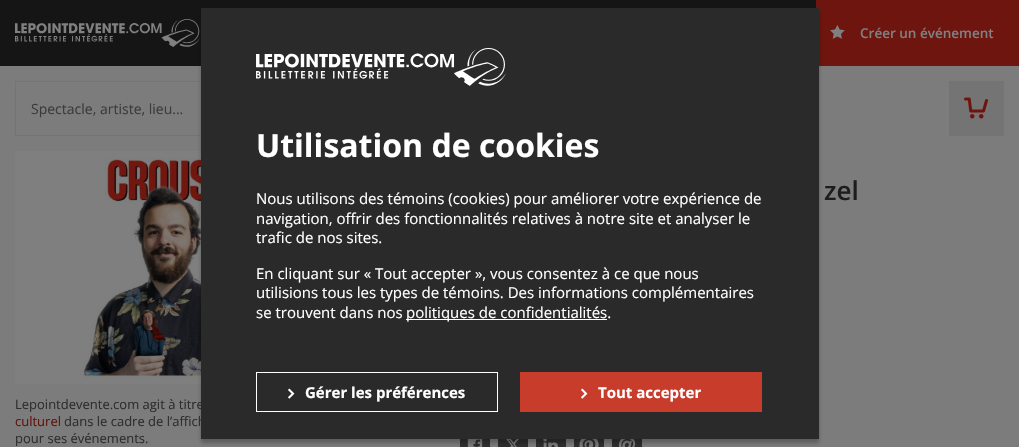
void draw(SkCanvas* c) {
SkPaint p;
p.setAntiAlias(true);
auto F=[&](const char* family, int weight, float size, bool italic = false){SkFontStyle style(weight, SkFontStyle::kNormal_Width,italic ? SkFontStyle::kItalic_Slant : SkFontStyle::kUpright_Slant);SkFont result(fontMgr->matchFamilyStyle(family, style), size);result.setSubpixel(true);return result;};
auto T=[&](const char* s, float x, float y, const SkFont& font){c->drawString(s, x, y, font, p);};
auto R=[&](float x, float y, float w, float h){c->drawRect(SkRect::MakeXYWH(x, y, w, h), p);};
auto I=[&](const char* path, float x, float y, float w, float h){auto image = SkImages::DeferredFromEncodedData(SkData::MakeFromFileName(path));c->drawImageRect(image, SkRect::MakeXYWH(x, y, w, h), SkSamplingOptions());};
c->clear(0xff7c7c7c);
p.setColor(0xff151515);
R(0,0,816,66);
I("1.png",15,19,185,28);
p.setColor(0xff6d150e);
R(816,0,203,66);
I("2.png",830,25,15,14);
auto f1 = F("Open Sans",600,13.5);
p.setColor(0xff808080);
T("Créer un événement",860,38,f1);
p.setStroke(true);
p.setStrokeWidth(1);
p.setColor(0xff747474);
c->drawRect(SkRect::MakeXYWH(15.5,81.5,250,54),p);
auto f2 = F("Open Sans",400,14);
p.setStroke(false);
p.setColor(0xff3b3b3b);
T("Spectacle, artiste, lieu...",31,114,f2);
p.setColor(0xff747474);
R(949,81,55,55);
I("3.png",964,97,24,22);
I("7.png",15,151,186,233);
I("8.png",460,439,30,8);
I("9.png",498,439,30,8);
I("10.png",536,439,30,8);
I("11.png",574,439,30,8);
I("12.png",612,439,30,8);
p.setColor(0x40000000);
p.setMaskFilter(SkMaskFilter::MakeBlur(kNormal_SkBlurStyle, 2));
c->drawRect(SkRect::MakeXYWH(201,12,618,431),p);
p.setMaskFilter(nullptr);
auto f3 = F("Open Sans",400,13);
p.setColor(0xff2e2e2e);
T("Lepointdevente.com agit à titre",15,409,f3);
T("dans le cadre de l’affich",64,426,f3);
p.setColor(0xff2a2a2a);
R(201,8,618,431);
I("4.png",256,48,250,38);
auto f4 = F("Open Sans",700,32);
p.setColor(0xffffffff);
T("Utilisation de cookies",256,157,f4);
auto f5 = F("Open Sans",400,15);
T("Nous utilisons des témoins (cookies) pour améliorer votre expérience de",256,204,f5);
T("navigation, offrir des fonctionnalités relatives à notre site et analyser le",256,224,f5);
T("trafic de nos sites.",256,243,f5);
T("En cliquant sur « Tout accepter », vous consentez à ce que nous",256,279,f5);
T("utilisions tous les types de témoins. Des informations complémentaires",256,298,f5);
T("se trouvent dans nos",256,318,f5);
R(406,319,201,1);
T("politiques de confidentialités.",406,318,f5);
p.setStroke(true);
c->drawRect(SkRect::MakeXYWH(256.5,372.5,241,39),p);
I("5.png",288,388,7,11);
auto f6 = F("Open Sans",700,15);
p.setStroke(false);
T("Gérer les préférences",305,398,f6);
p.setColor(0xffc83c2b);
R(520,372,242,40);
I("6.png",581,388,7,11);
p.setColor(0xffffffff);
T("Tout accepter",598,398,f6);
auto f7 = F("Open Sans",600,26);
p.setColor(0xff1d1d1d);
T("zel",824,200,f7);
p.setColor(0xff64130d);
T("culturel",15,426,f3);
p.setColor(0xff2e2e2e);
T("pour ses événements.",15,443,f3);
}
